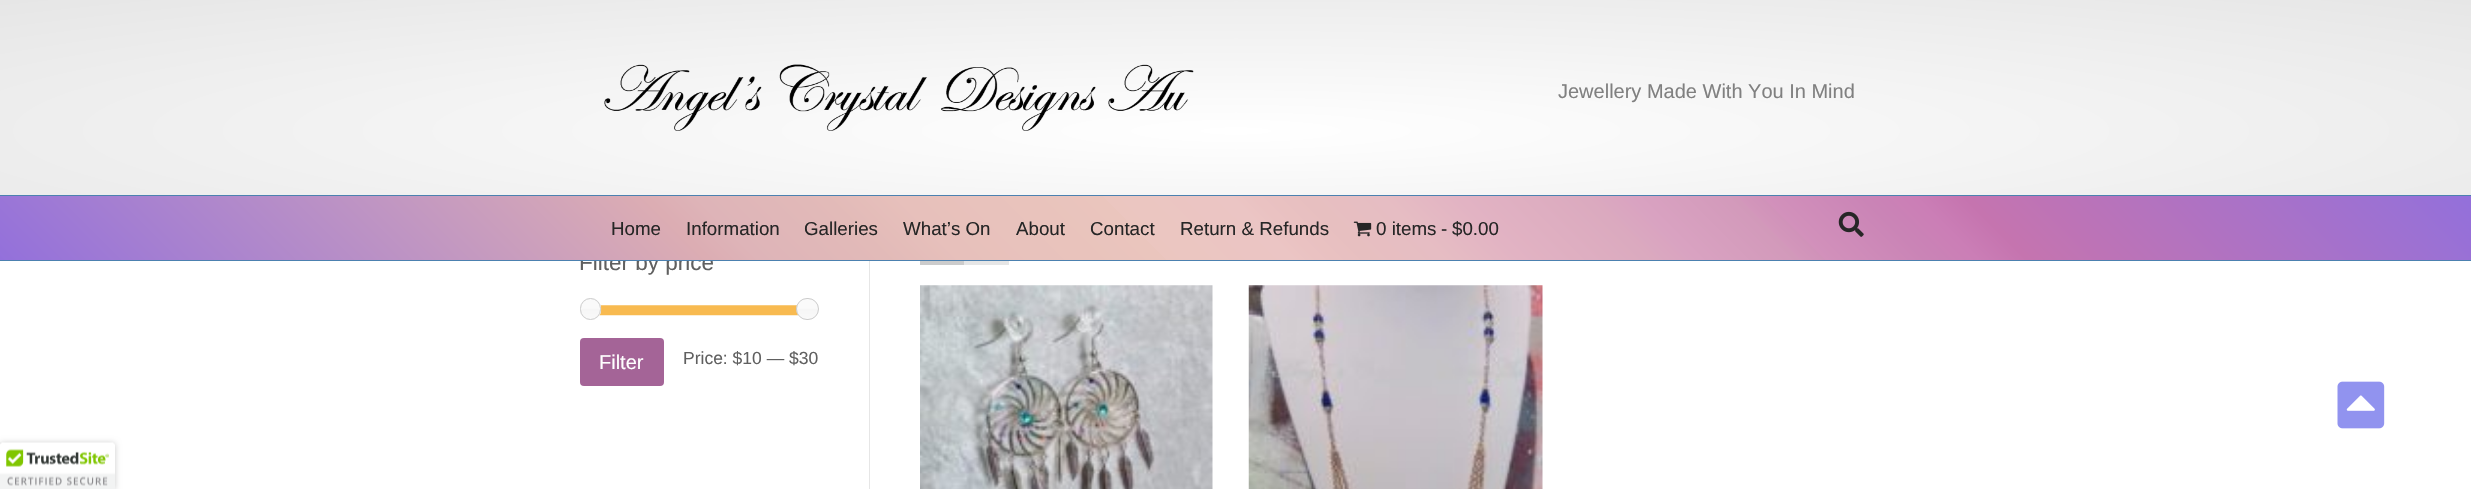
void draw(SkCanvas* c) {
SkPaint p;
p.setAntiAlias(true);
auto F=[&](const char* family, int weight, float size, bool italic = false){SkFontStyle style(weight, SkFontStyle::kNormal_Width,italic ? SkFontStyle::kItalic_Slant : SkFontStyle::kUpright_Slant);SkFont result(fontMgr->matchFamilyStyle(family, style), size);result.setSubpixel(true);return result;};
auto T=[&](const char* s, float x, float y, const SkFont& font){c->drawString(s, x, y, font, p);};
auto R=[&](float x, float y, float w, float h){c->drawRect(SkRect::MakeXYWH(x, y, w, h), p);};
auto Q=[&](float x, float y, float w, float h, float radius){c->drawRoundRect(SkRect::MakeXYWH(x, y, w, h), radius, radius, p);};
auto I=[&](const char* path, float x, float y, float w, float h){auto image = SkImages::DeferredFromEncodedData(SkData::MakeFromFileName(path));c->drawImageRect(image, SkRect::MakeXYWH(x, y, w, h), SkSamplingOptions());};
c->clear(0xffffffff);
{
const SkColor colors[] = {0xffffffff,0xffe6e6e6};
const float stops[] = {0,1};
SkMatrix m = SkMatrix::Translate(1236,131).preScale(1747,185);
p.setShader(SkGradientShader::MakeRadial({0, 0}, 1, colors, stops, 2, SkTileMode::kClamp, 0, &m));
p.setAlpha(255);
}
R(0,0,2471,195);
I("1.png",604,64,590,67);
auto f1 = F("Liberation Sans",400,20);
p.setShader(nullptr);
p.setColor(0xff808080);
T("Jewellery Made With You In Mind",1558,98,f1);
auto f2 = F("Liberation Sans",400,22.5);
p.setColor(0xff606060);
T("Filter by price",579,270,f2);
{
const SkColor colors[] = {0xff9370db,0xffdcadb3,0xffdeb4b8,0xffe2bab8,0xffe7c0bb,0xffeac5bd,0xffebc6c0,0xffebc5c4,0xffeac2c2,0xffe7bfc0,0xffe6bdc3,0xffe2b3c3,0xffdbaabf,0xffd9a2c1,0xffd299ba,0xffd397bb,0xffd092b9,0xffd291bb,0xffca84b6,0xffcb7eb6,0xffc574af,0xff9370db};
const float stops[] = {0,.28,.3,.35,.38,.46,.46,.51,.52,.54,.57,.6,.65,.67,.71,.71,.72,.72,.76,.78,.8,1};
const SkPoint ends[] = {{602,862}, {1869,-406}};
p.setShader(SkGradientShader::MakeLinear(ends, colors, stops, 22, SkTileMode::kClamp));
p.setAlpha(255);
}
R(0,196,2471,64);
p.setShader(nullptr);
p.setColor(0xff4c81b0);
R(0,195,2471,1);
R(0,260,2471,1);
auto f3 = F("Liberation Sans",400,18.75);
p.setColor(0xff262626);
T("Home",611,235,f3);
T("Information",686,235,f3);
T("Galleries",804,235,f3);
T("What’s On",903,235,f3);
T("About",1016,235,f3);
T("Contact",1090,235,f3);
T("Return & Refunds",1180,235,f3);
I("2.png",1353,221,19,16);
T("0 items",1376,235,f3);
T("-",1441,235,f3);
T("$0.00",1452,235,f3);
I("3.png",1838,211,26,26);
I("4.png",600,305,197,1);
I("6.png",599,305,200,11);
I("5.png",580,298,22,22);
p.setStroke(true);
p.setStrokeWidth(1);
p.setColor(0xffcccccc);
c->drawRoundRect(SkRect::MakeXYWH(580.5,298.5,20,21),10,10,p);
I("7.png",796,298,23,22);
c->drawRoundRect(SkRect::MakeXYWH(796.5,298.5,22,21),10.5,10.5,p);
p.setStroke(false);
p.setColor(0xffa46497);
Q(580,338,84,48,4);
p.setColor(0xffffffff);
T("Filter",599,369,f1);
auto f4 = F("Liberation Sans",400,17.5);
p.setColor(0xff606060);
T("Price: $10 — $30",683,364,f4);
p.setColor(0xffe6e6e6);
R(869,261,1,228);
p.setColor(0xffcccccc);
R(920,261,44,4);
p.setColor(0xffe6e6e6);
R(964,261,45,4);
I("8.png",920,285,293,204);
I("9.png",1248,285,295,204);
I("10.png",2337,381,48,48);
p.setColor(0x33000000);
p.setMaskFilter(SkMaskFilter::MakeBlur(kNormal_SkBlurStyle, 3));
c->drawRoundRect(SkRect::MakeXYWH(0,443,115,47),2.5,2.5,p);
p.setMaskFilter(nullptr);
I("11.png",0,442,115,47);
}
